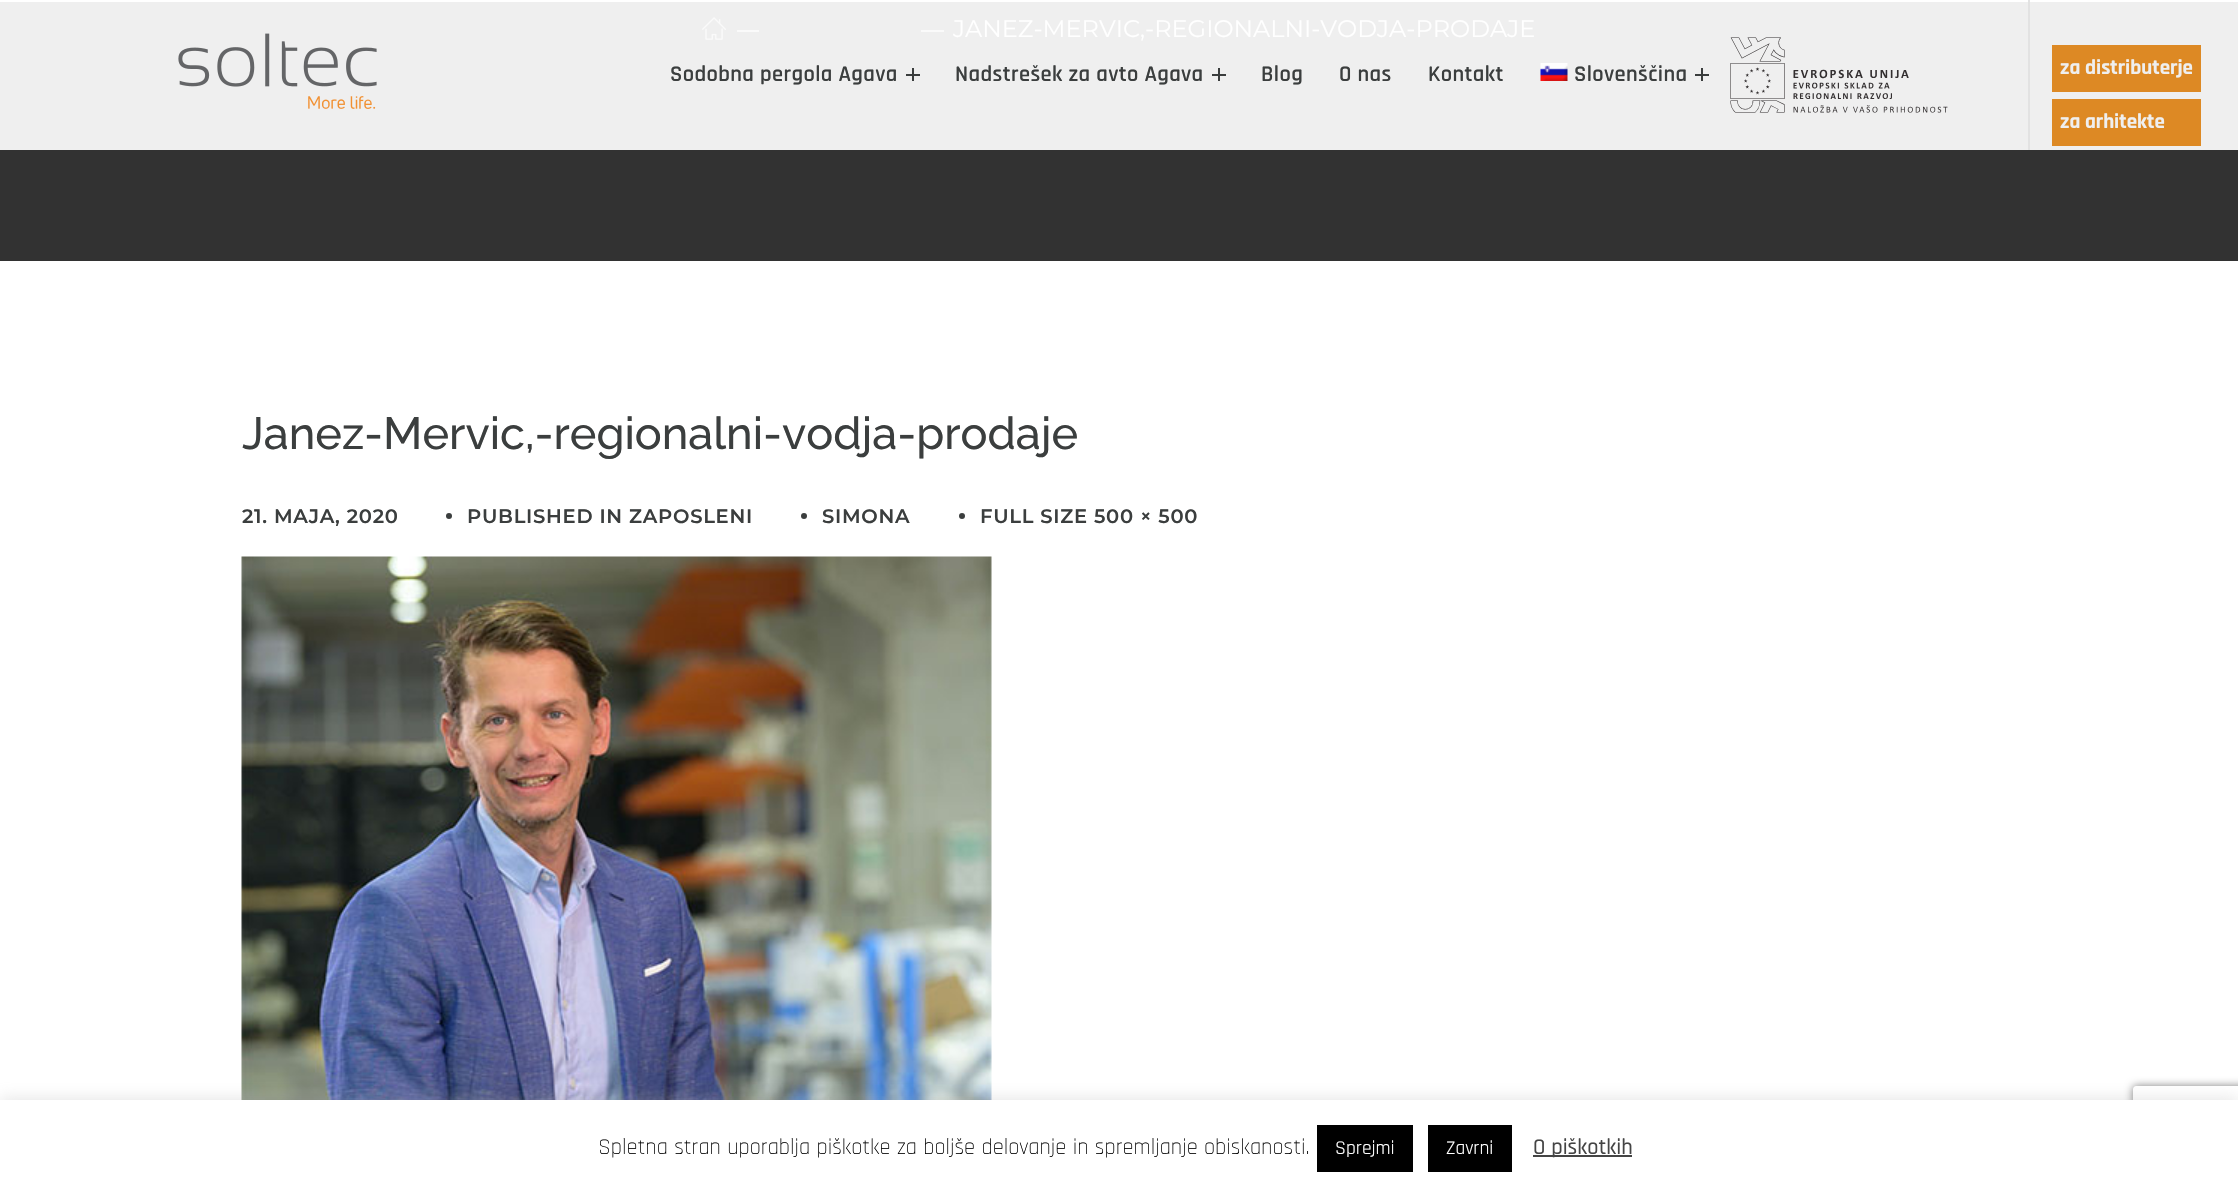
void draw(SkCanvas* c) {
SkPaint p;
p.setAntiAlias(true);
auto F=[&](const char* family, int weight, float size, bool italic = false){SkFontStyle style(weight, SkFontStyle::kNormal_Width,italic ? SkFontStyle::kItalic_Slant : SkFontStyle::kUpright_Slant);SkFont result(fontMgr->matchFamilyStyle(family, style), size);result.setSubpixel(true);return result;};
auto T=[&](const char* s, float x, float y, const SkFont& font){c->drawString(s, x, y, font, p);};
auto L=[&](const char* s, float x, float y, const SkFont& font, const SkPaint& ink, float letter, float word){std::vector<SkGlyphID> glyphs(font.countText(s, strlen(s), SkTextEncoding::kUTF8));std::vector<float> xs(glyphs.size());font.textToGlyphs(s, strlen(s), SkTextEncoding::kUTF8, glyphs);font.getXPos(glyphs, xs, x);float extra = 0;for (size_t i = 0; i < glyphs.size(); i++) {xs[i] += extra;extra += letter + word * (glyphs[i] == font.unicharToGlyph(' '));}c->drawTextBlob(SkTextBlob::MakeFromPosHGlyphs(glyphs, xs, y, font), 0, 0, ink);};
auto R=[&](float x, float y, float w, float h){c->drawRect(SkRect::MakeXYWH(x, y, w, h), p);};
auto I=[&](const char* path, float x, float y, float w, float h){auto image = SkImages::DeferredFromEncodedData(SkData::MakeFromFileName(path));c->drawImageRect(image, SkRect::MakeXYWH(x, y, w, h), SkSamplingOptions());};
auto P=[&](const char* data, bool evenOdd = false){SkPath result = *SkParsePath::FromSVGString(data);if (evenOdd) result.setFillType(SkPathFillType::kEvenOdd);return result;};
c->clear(0xffffffff);
p.setColor(0xff323232);
R(0,150,2238,111);
p.setColor(0xffefefef);
R(0,2,2238,148);
p.setColor(0xffe2e2e2);
R(2028,0,2,150);
I("1.png",702,17,24,23);
p.setColor(0xfffafafa);
R(737,30,22,2);
R(921,30,23,2);
auto f1 = F("Montserrat",400,24);
p.setColor(0xffffffff);
T("JANEZ-MERVIC,-REGIONALNI-VODJA-PRODAJE",953,37,f1);
p.setColor(0xfffdfdfd);
R(2028,0,2,2);
p.setColor(0xffe3e3e3);
R(2028,0,2,2);
I("2.png",178,33,199,76);
auto f2 = F("Rajdhani",600,22.5);
p.setColor(0xff3b3e3e);
L("Sodobna pergola Agava",670,81,f2,p,.4,0);
p.setColor(0xff3a3d3d);
R(906,74,14,2);
R(912,68,2,13);
p.setColor(0xff3b3e3e);
L("Nadstrešek za avto Agava",955,81,f2,p,.4,0);
p.setColor(0xff3a3d3d);
R(1212,74,14,2);
R(1218,68,2,13);
p.setColor(0xff3b3e3e);
L("Blog",1261,81,f2,p,.4,0);
L("O nas",1339,81,f2,p,.4,0);
L("Kontakt",1428,81,f2,p,.4,0);
I("3.png",1540,63,28,18);
L("Slovenščina",1574,81,f2,p,.4,0);
p.setColor(0xff3a3d3d);
R(1695,74,14,2);
R(1701,68,2,13);
I("4.png",1730,37,218,76);
p.setColor(0xffdd8924);
R(2052,45,149,47);
auto f3 = F("Rajdhani",700,21);
p.setColor(0xffefefef);
T("za distributerje",2060,74,f3);
p.setColor(0xffdd8924);
R(2052,99,149,47);
p.setColor(0xffefefef);
T("za arhitekte",2060,128,f3);
auto f4 = F("Raleway",500,45);
p.setColor(0xff3b3e3e);
T("Janez-Mervic,-regionalni-vodja-prodaje",242,449,f4);
auto f5 = F("Montserrat",600,19.5);
L("21. MAJA, 2020",242,523,f5,p,.75,0);
c->drawCircle(449,516,3,p);
L("PUBLISHED IN ZAPOSLENI",467,523,f5,p,.75,0);
c->drawCircle(804,516,3,p);
L("SIMONA",822,523,f5,p,.75,0);
c->drawCircle(962,516,3,p);
L("FULL SIZE 500 × 500",980,523,f5,p,.75,0);
I("5.png",241,556,751,544);
p.setColor(0x4dacabab);
p.setMaskFilter(SkMaskFilter::MakeBlur(kNormal_SkBlurStyle, 7.5));
c->drawRect(SkRect::MakeXYWH(0,1098,2238,98),p);
p.setMaskFilter(nullptr);
c->save();
c->clipPath(P("M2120 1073h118v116h-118zm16 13h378c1.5 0 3 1.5 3 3v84c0 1.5-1.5 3-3 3h-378c-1.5 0-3-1.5-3-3v-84c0-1.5 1.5-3 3-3z",true),true);
p.setColor(0xff808080);
p.setMaskFilter(SkMaskFilter::MakeBlur(kNormal_SkBlurStyle, 4));
c->drawRoundRect(SkRect::MakeXYWH(2133,1086,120,90),3,3,p);
p.setMaskFilter(nullptr);
c->restore();
p.setColor(0xffffffff);
R(0,1100,2238,97);
auto f6 = F("Rajdhani",300,22.5);
p.setColor(0xff000000);
T("Spletna stran uporablja piškotke za boljše delovanje in spremljanje obiskanosti.",598,1154,f6);
R(1317,1125,96,47);
auto f7 = F("Rajdhani",400,19.5);
p.setColor(0xffffffff);
T("Sprejmi",1335,1154,f7);
p.setColor(0xff000000);
R(1428,1125,84,47);
p.setColor(0xffffffff);
T("Zavrni",1446,1154,f7);
p.setColor(0xff444444);
R(1533,1155,99,2);
auto f8 = F("Rajdhani",500,22.5);
T("O piškotkih",1533,1154,f8);
}
